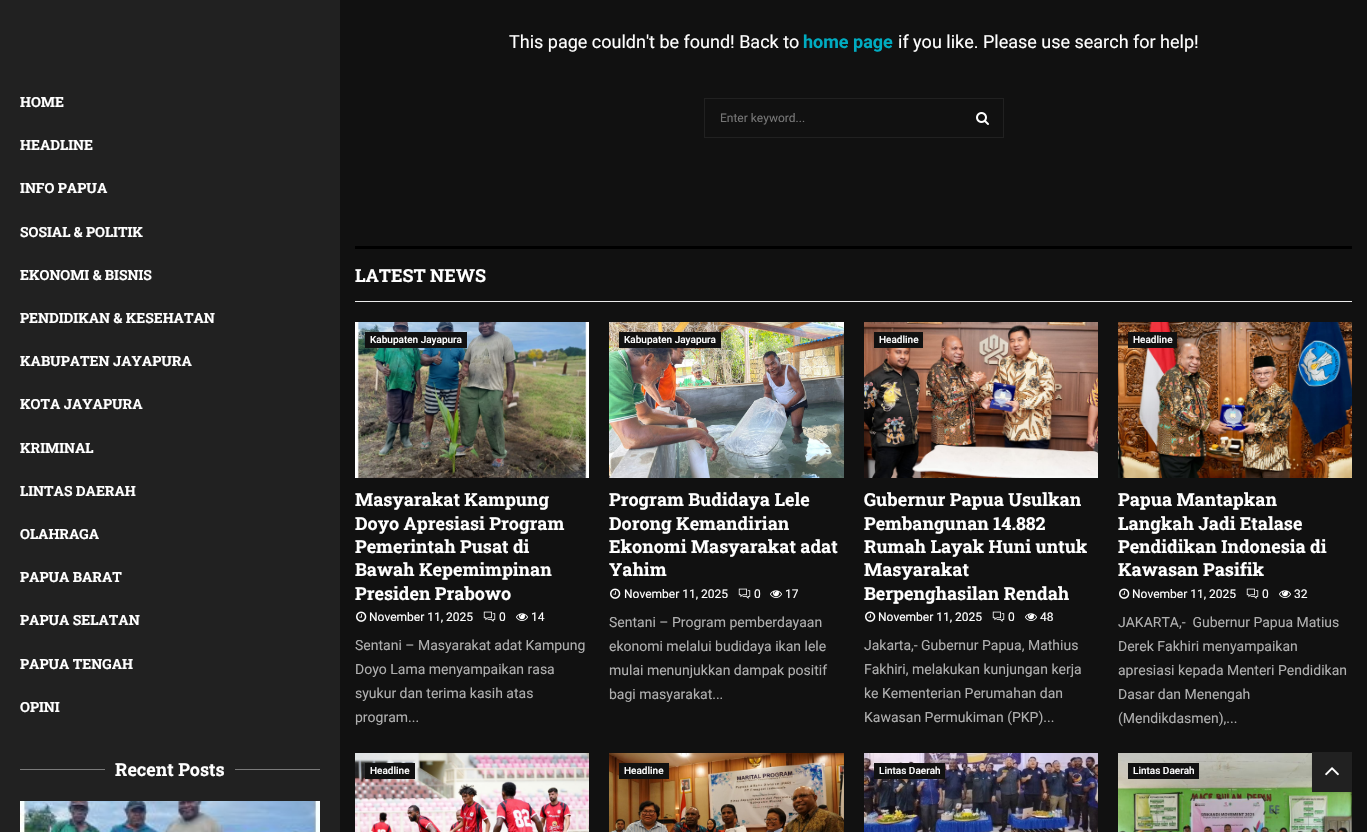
void draw(SkCanvas* c) {
SkPaint p;
p.setAntiAlias(true);
auto F=[&](const char* family, int weight, float size, bool italic = false){SkFontStyle style(weight, SkFontStyle::kNormal_Width,italic ? SkFontStyle::kItalic_Slant : SkFontStyle::kUpright_Slant);SkFont result(fontMgr->matchFamilyStyle(family, style), size);result.setSubpixel(true);return result;};
auto T=[&](const char* s, float x, float y, const SkFont& font){c->drawString(s, x, y, font, p);};
auto R=[&](float x, float y, float w, float h){c->drawRect(SkRect::MakeXYWH(x, y, w, h), p);};
auto I=[&](const char* path, float x, float y, float w, float h){auto image = SkImages::DeferredFromEncodedData(SkData::MakeFromFileName(path));c->drawImageRect(image, SkRect::MakeXYWH(x, y, w, h), SkSamplingOptions());};
c->clear(0xff111111);
p.setColor(0xff212121);
R(0,0,340,832);
auto f1 = F("Roboto Slab",700,14);
p.setColor(0xffffffff);
T("HOME",20,107,f1);
T("HEADLINE",20,150,f1);
T("INFO PAPUA",20,193,f1);
T("SOSIAL & POLITIK",20,237,f1);
T("EKONOMI & BISNIS",20,280,f1);
T("PENDIDIKAN & KESEHATAN",20,323,f1);
T("KABUPATEN JAYAPURA",20,366,f1);
T("KOTA JAYAPURA",20,409,f1);
T("KRIMINAL",20,453,f1);
T("LINTAS DAERAH",20,496,f1);
T("OLAHRAGA",20,539,f1);
T("PAPUA BARAT",20,582,f1);
T("PAPUA SELATAN",20,625,f1);
T("PAPUA TENGAH",20,669,f1);
T("OPINI",20,712,f1);
p.setColor(0xff7a7a7a);
R(20,769,85,1);
auto f2 = F("Roboto Slab",700,18);
p.setColor(0xffffffff);
T("Recent Posts",115,776,f2);
p.setColor(0xff7a7a7a);
R(235,769,85,1);
I("1.png",20,801,300,31);
auto f3 = F("Roboto",400,18);
p.setColor(0xffffffff);
T("This page couldn't be found! Back to",509,48,f3);
auto f4 = F("Roboto",700,18);
p.setColor(0xff00acc1);
T("home page",803,48,f4);
p.setColor(0xffffffff);
T("if you like. Please use search for help!",898,48,f3);
p.setStroke(true);
p.setStrokeWidth(1);
p.setColor(0xff212121);
c->drawRect(SkRect::MakeXYWH(704.5,98.5,299,39),p);
auto f5 = F("Roboto",400,12);
p.setStroke(false);
p.setColor(0xff757575);
T("Enter keyword...",720,122,f5);
I("2.png",976,112,13,13);
p.setColor(0xffececec);
R(355,301,997,1);
p.setColor(0xff000000);
R(355,246,997,3);
p.setColor(0xffffffff);
T("LATEST NEWS",355,282,f2);
I("3.png",355,322,234,156);
p.setColor(0xff111111);
R(365,332,102,16);
auto f6 = F("Roboto",500,10);
p.setColor(0xffffffff);
T("Kabupaten Jayapura",370,343,f6);
T("Masyarakat Kampung",355,506,f2);
T("Doyo Apresiasi Program",355,530,f2);
T("Pemerintah Pusat di",355,553,f2);
T("Bawah Kepemimpinan",355,576,f2);
T("Presiden Prabowo",355,600,f2);
I("4.png",356,611,11,11);
T("November 11, 2025",369,621,f5);
I("5.png",483,611,13,11);
T("0",499,621,f5);
I("6.png",516,613,12,8);
T("14",531,621,f5);
auto f7 = F("Roboto",400,14);
p.setColor(0xffafafaf);
T("Sentani – Masyarakat adat Kampung",355,650,f7);
T("Doyo Lama menyampaikan rasa",355,674,f7);
T("syukur dan terima kasih atas",355,698,f7);
T("program...",355,722,f7);
I("7.png",609,322,235,156);
p.setColor(0xff111111);
R(619,332,102,16);
p.setColor(0xffffffff);
T("Kabupaten Jayapura",624,343,f6);
T("Program Budidaya Lele",609,506,f2);
T("Dorong Kemandirian",609,530,f2);
T("Ekonomi Masyarakat adat",609,553,f2);
T("Yahim",609,576,f2);
I("4.png",610,588,11,11);
T("November 11, 2025",624,598,f5);
I("5.png",738,588,13,11);
T("0",754,598,f5);
I("6.png",770,590,12,8);
T("17",785,598,f5);
p.setColor(0xffafafaf);
T("Sentani – Program pemberdayaan",609,627,f7);
T("ekonomi melalui budidaya ikan lele",609,651,f7);
T("mulai menunjukkan dampak positif",609,675,f7);
T("bagi masyarakat...",609,699,f7);
I("8.png",864,322,234,156);
p.setColor(0xff111111);
R(874,332,49,16);
p.setColor(0xffffffff);
T("Headline",879,343,f6);
T("Gubernur Papua Usulkan",864,506,f2);
T("Pembangunan 14.882",864,530,f2);
T("Rumah Layak Huni untuk",864,553,f2);
T("Masyarakat",864,576,f2);
T("Berpenghasilan Rendah",864,600,f2);
I("4.png",865,611,11,11);
T("November 11, 2025",878,621,f5);
I("5.png",992,611,13,11);
T("0",1008,621,f5);
I("6.png",1025,613,12,8);
T("48",1040,621,f5);
p.setColor(0xffafafaf);
T("Jakarta,- Gubernur Papua, Mathius",864,650,f7);
T("Fakhiri, melakukan kunjungan kerja",864,674,f7);
T("ke Kementerian Perumahan dan",864,698,f7);
T("Kawasan Permukiman (PKP)...",864,722,f7);
I("9.png",1118,322,234,156);
p.setColor(0xff111111);
R(1128,332,49,16);
p.setColor(0xffffffff);
T("Headline",1133,343,f6);
T("Papua Mantapkan",1118,506,f2);
T("Langkah Jadi Etalase",1118,530,f2);
T("Pendidikan Indonesia di",1118,553,f2);
T("Kawasan Pasifik",1118,576,f2);
I("4.png",1119,588,11,11);
T("November 11, 2025",1132,598,f5);
I("5.png",1246,588,13,11);
T("0",1262,598,f5);
I("6.png",1279,590,12,8);
T("32",1294,598,f5);
p.setColor(0xffafafaf);
T("JAKARTA,-  Gubernur Papua Matius",1118,627,f7);
T("Derek Fakhiri menyampaikan",1118,651,f7);
T("apresiasi kepada Menteri Pendidikan",1118,675,f7);
T("Dasar dan Menengah",1118,699,f7);
T("(Mendikdasmen),...",1118,723,f7);
I("10.png",355,753,234,79);
p.setColor(0xff111111);
R(365,763,50,16);
p.setColor(0xffffffff);
T("Headline",370,774,f6);
I("11.png",609,753,235,79);
p.setColor(0xff111111);
R(619,763,50,16);
p.setColor(0xffffffff);
T("Headline",624,774,f6);
I("12.png",864,753,234,79);
p.setColor(0xff111111);
R(874,763,71,16);
p.setColor(0xffffffff);
T("Lintas Daerah",879,774,f6);
I("13.png",1118,753,234,79);
p.setColor(0xff111111);
R(1128,763,71,16);
p.setColor(0xffffffff);
T("Lintas Daerah",1133,774,f6);
p.setColor(0x1a000000);
p.setMaskFilter(SkMaskFilter::MakeBlur(kNormal_SkBlurStyle, 1));
c->drawRect(SkRect::MakeXYWH(1312,753,40,40),p);
p.setMaskFilter(nullptr);
p.setColor(0xff212121);
R(1312,752,40,40);
I("14.png",1325,767,14,9);
}
